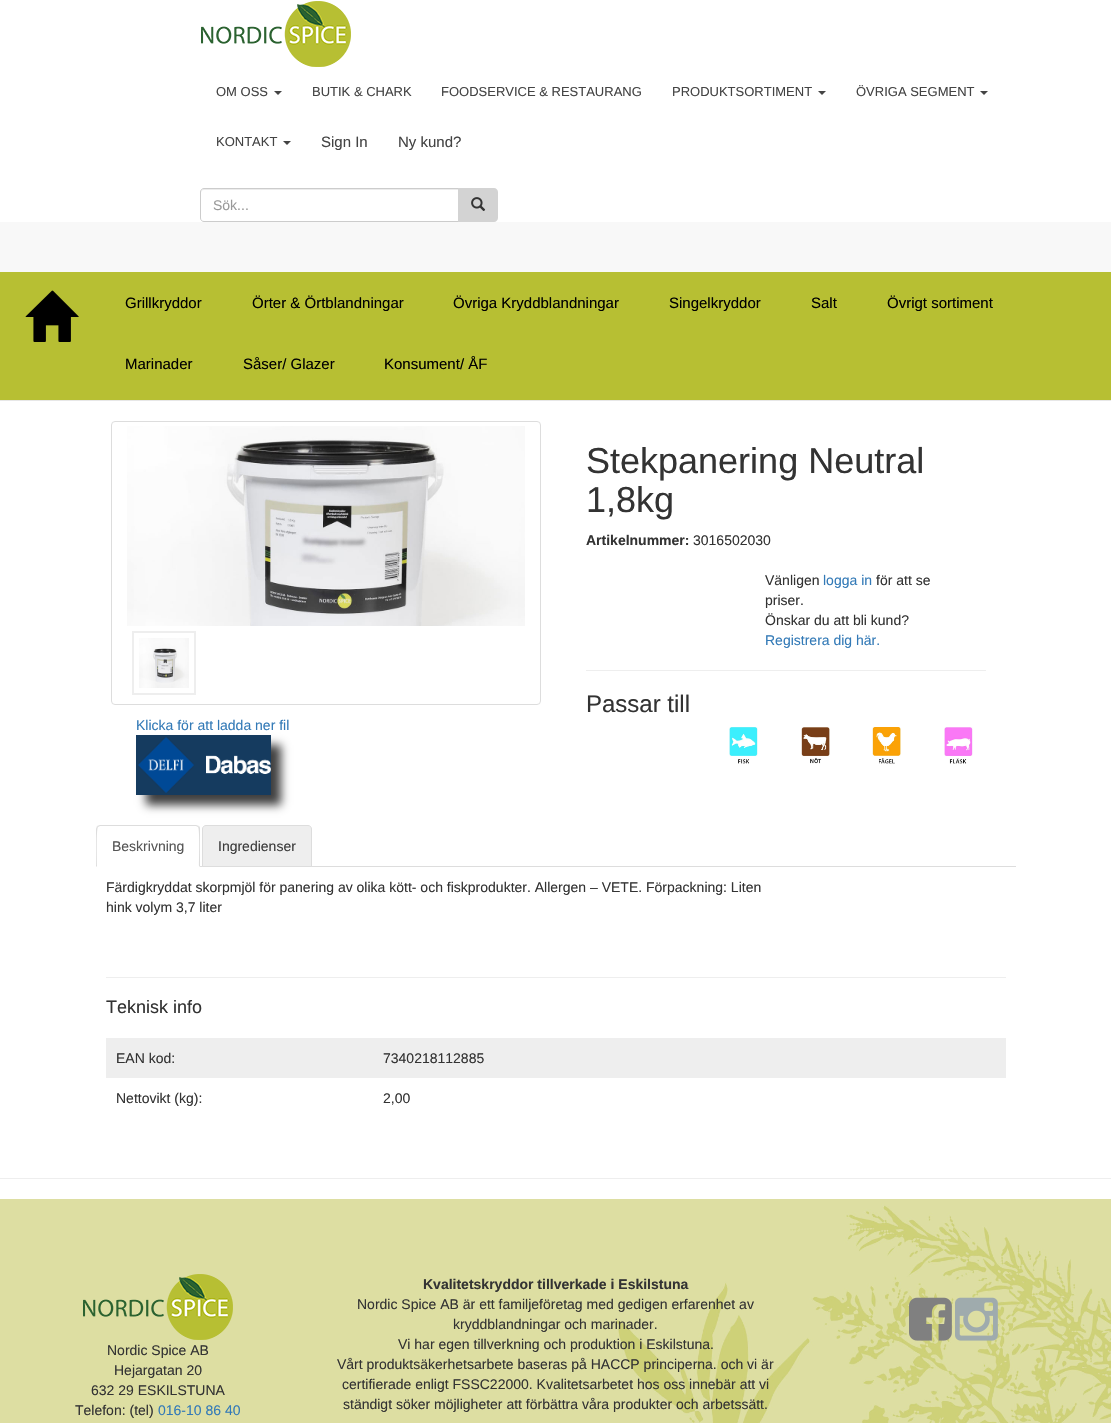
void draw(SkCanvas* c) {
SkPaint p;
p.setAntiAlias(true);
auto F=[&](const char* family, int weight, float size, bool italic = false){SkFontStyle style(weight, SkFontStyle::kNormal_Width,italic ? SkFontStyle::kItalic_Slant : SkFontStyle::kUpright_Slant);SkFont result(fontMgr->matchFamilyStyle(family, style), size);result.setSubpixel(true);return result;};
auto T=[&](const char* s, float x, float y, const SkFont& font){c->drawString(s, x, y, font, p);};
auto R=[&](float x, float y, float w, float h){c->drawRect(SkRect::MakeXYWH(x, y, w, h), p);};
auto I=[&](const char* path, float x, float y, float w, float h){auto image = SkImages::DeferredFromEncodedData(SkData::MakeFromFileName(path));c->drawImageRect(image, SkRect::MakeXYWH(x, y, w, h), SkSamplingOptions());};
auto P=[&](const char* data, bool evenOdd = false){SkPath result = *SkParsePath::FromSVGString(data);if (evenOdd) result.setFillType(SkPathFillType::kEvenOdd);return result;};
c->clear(0xffffffff);
I("1.png",201,1,150,66);
auto f1 = F("Liberation Sans",400,13);
p.setColor(0xff444444);
T("OM OSS",216,96,f1);
c->drawPath(P("M274 91h8l-4 4z"),p);
T("BUTIK & CHARK",312,96,f1);
T("FOODSERVICE & RESTAURANG",441,96,f1);
T("PRODUKTSORTIMENT",672,96,f1);
c->drawPath(P("M818 91h8l-4 4z"),p);
T("ÖVRIGA SEGMENT",856,96,f1);
c->drawPath(P("M980 91h8l-4 4z"),p);
T("KONTAKT",216,146,f1);
c->drawPath(P("M283 141h8l-4 4z"),p);
auto f2 = F("Liberation Sans",400,15);
T("Sign In",321,147,f2);
T("Ny kund?",398,147,f2);
p.setColor(0xffececec);
c->drawPath(P("M204 190h254v-1h-254c-2 0-3 1-3 3v1c0-2 1-3 3-3z"),p);
p.setStroke(true);
p.setStrokeWidth(1);
p.setColor(0xffcccccc);
c->drawPath(P("M204 188.5h254.5v33h-254.5c-2 0-3.5-1.5-3.5-3.5v-26c0-2 1.5-3.5 3.5-3.5z"),p);
auto f3 = F("Liberation Sans",400,14);
p.setStroke(false);
p.setColor(0xff999999);
T("Sök...",213,210,f3);
p.setColor(0xffd3d3d3);
c->drawPath(P("M458 188h36c2 0 4 2 4 4v26c0 2-2 4-4 4h-36z"),p);
I("2.png",471,197,15,14);
p.setColor(0xfff8f8f8);
R(0,222,1111,50);
p.setColor(0xffe7e7e7);
R(0,400,1111,1);
p.setColor(0xffb7bf33);
R(0,272,1111,128);
I("3.png",25,290,54,52);
p.setColor(0xff000000);
T("Grillkryddor",125,308,f2);
T("Örter & Örtblandningar",252,308,f2);
T("Övriga Kryddblandningar",453,308,f2);
T("Singelkryddor",669,308,f2);
T("Salt",811,308,f2);
T("Övrigt sortiment",887,308,f2);
T("Marinader",125,369,f2);
T("Såser/ Glazer",243,369,f2);
T("Konsument/ ÅF",384,369,f2);
auto f4 = F("Liberation Sans",400,36);
p.setColor(0xff333333);
T("Stekpanering Neutral",586,473,f4);
T("1,8kg",586,512,f4);
auto f5 = F("Liberation Sans",700,14);
T("Artikelnummer:",586,545,f5);
T("3016502030",693,545,f3);
T("Vänligen",765,585,f3);
p.setColor(0xff337ab7);
T("logga in",823,585,f3);
p.setColor(0xff333333);
T("för att se",876,585,f3);
T("priser.",765,605,f3);
T("Önskar du att bli kund?",765,625,f3);
p.setColor(0xff337ab7);
T("Registrera dig här.",765,645,f3);
p.setColor(0xffeeeeee);
R(586,670,400,1);
auto f6 = F("Liberation Sans",400,24);
p.setColor(0xff333333);
T("Passar till",586,712,f6);
I("4.png",729,727,29,37);
I("5.png",801,727,29,37);
I("6.png",872,727,29,37);
I("7.png",944,727,29,37);
p.setStroke(true);
p.setColor(0xffdddddd);
c->drawRoundRect(SkRect::MakeXYWH(111.5,421.5,429,283),3.5,3.5,p);
I("8.png",127,426,398,200);
p.setStrokeWidth(2);
p.setColor(0xffeeeeee);
c->drawRect(SkRect::MakeXYWH(133,632,62,62),p);
I("9.png",139,638,50,50);
p.setStroke(false);
p.setColor(0xff337ab7);
T("Klicka för att ladda ner fil",136,730,f3);
p.setColor(0xbf000000);
p.setMaskFilter(SkMaskFilter::MakeBlur(kNormal_SkBlurStyle, 4.5));
c->drawRect(SkRect::MakeXYWH(146,745,135,60),p);
p.setMaskFilter(nullptr);
p.setColor(0xff153b5f);
R(136,735,135,60);
I("10.png",138,737,133,56);
p.setColor(0xffdddddd);
R(200,866,816,1);
c->drawPath(P("M100 825l-3 1l1 1l2-1h96l2 1l1-1l-3-1z"),p);
c->drawPath(P("M200 867v-38c0-1 0-2-1-3l-1 1c2 2 1 34 1 39z"),p);
c->drawPath(P("M96 867l1-1c0-5-1-37 1-39l-1-1l-1 3z"),p);
p.setColor(0xff555555);
T("Beskrivning",112,851,f3);
p.setColor(0xffeeeeee);
c->drawPath(P("M206 825.5h102c2 0 3.5 1.5 3.5 3.5v37.5h-109v-37.5c0-2 1.5-3.5 3.5-3.5z"),p);
p.setStroke(true);
p.setStrokeWidth(1);
p.setColor(0xffdddddd);
c->drawPath(P("M206 825.5h102c2 0 3.5 1.5 3.5 3.5v37.5h-109v-37.5c0-2 1.5-3.5 3.5-3.5z"),p);
p.setStroke(false);
p.setColor(0xff3c3c3c);
T("Ingredienser",218,851,f3);
p.setColor(0xff333333);
T("Färdigkryddat skorpmjöl för panering av olika kött- och fiskprodukter. Allergen – VETE. Förpackning: Liten",106,892,f3);
T("hink volym 3,7 liter",106,912,f3);
p.setColor(0xffeeeeee);
R(106,977,900,1);
auto f7 = F("Liberation Sans",400,18);
p.setColor(0xff333333);
T("Teknisk info",106,1013,f7);
p.setColor(0xffeeeeee);
R(106,1038,900,40);
p.setColor(0xff333333);
T("EAN kod:",116,1063,f3);
T("7340218112885",383,1063,f3);
T("Nettovikt (kg):",116,1103,f3);
T("2,00",383,1103,f3);
p.setColor(0xffeeeeee);
R(0,1178,1111,1);
I("11.png",0,1199,1111,224);
p.setColor(0xff333333);
T("Kvalitetskryddor tillverkade i Eskilstuna",423,1289,f5);
T("Nordic Spice AB är ett familjeföretag med gedigen erfarenhet av",357,1309,f3);
T("kryddblandningar och marinader.",453,1329,f3);
T("Vi har egen tillverkning och produktion i Eskilstuna.",398,1349,f3);
T("Vårt produktsäkerhetsarbete baseras på HACCP principerna. och vi är",337,1369,f3);
T("certifierade enligt FSSC22000. Kvalitetsarbetet hos oss innebär att vi",342,1389,f3);
T("ständigt söker möjligheter att förbättra våra produkter och arbetssätt.",343,1409,f3);
I("12.png",909,1297,43,44);
I("13.png",955,1297,43,44);
I("14.png",83,1274,150,66);
T("Nordic Spice AB",107,1355,f3);
T("Hejargatan 20",114,1375,f3);
T("632 29 ESKILSTUNA",91,1395,f3);
T("Telefon: (tel)",75,1415,f3);
p.setColor(0xff337ab7);
T("016-10 86 40",158,1415,f3);
}
